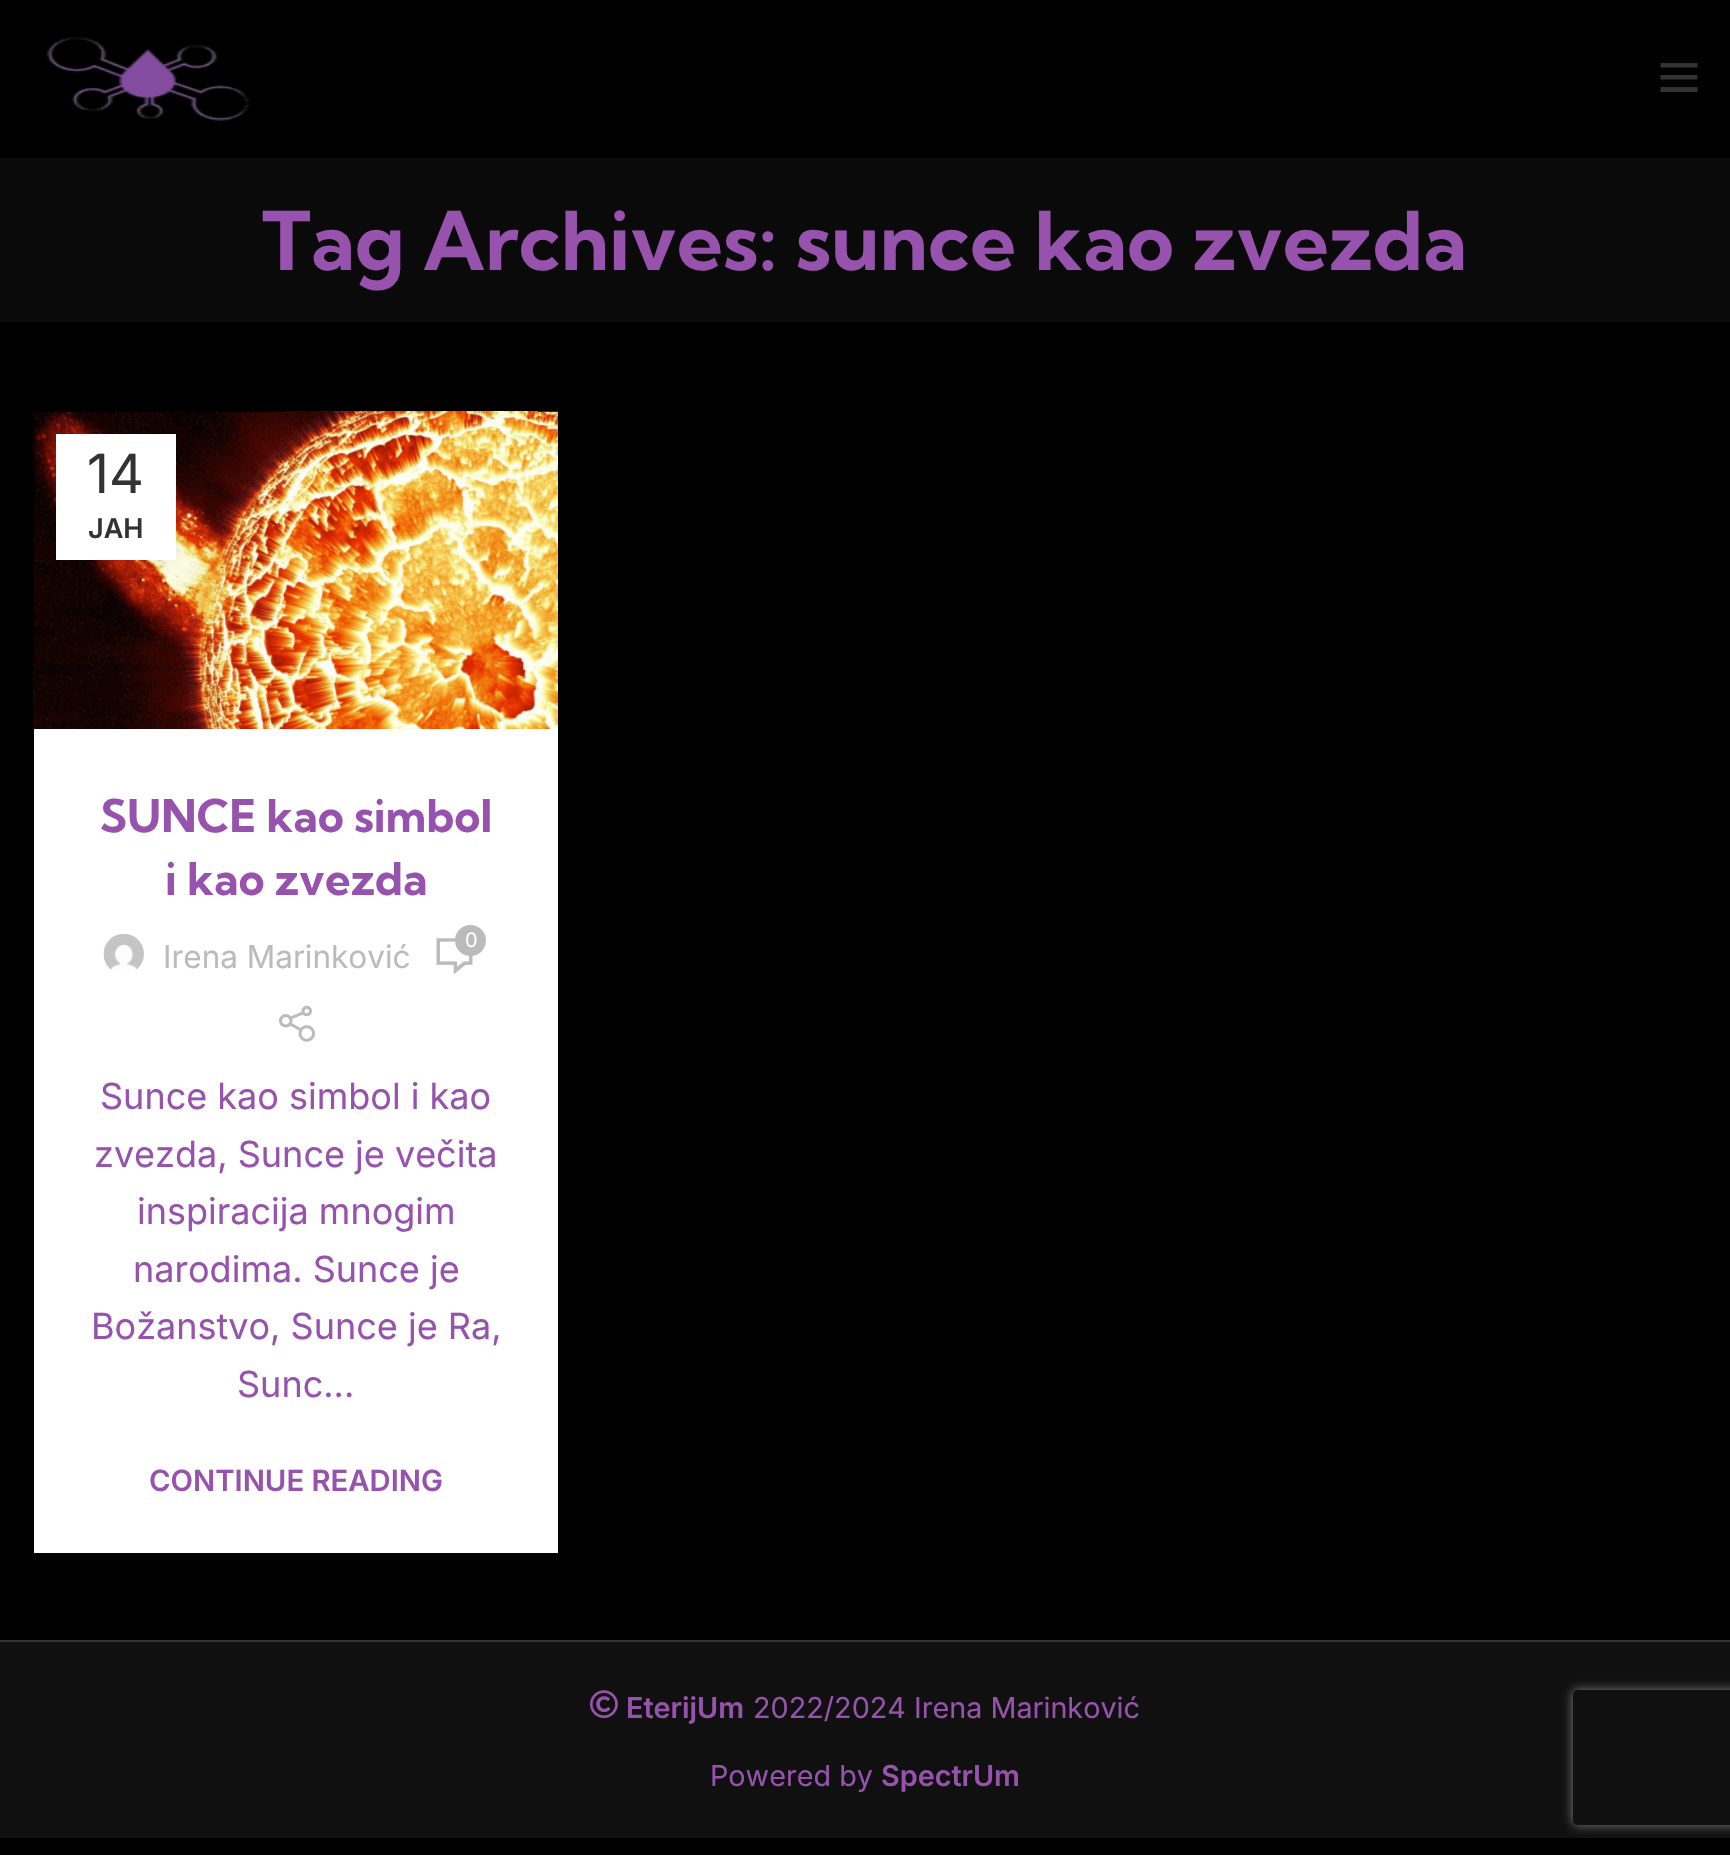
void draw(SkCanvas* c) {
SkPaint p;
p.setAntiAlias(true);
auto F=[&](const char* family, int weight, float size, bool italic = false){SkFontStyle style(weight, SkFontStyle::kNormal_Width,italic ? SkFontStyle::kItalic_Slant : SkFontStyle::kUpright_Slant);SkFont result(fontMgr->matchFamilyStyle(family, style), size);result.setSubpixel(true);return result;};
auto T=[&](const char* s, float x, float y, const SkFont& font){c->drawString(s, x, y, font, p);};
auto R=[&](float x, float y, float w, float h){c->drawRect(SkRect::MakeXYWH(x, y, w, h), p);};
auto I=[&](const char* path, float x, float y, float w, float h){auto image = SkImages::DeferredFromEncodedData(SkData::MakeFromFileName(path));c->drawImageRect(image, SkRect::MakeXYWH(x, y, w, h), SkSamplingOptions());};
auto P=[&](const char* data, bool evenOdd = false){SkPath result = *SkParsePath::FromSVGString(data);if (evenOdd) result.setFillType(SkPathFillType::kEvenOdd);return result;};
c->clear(0xff000000);
I("1.png",46,37,204,84);
p.setColor(0xff333333);
c->drawPath(P("M1660.5 63h37v4.5h-37zm0 12h37v4.5h-37zm0 12h37v5h-37z"),p);
p.setColor(0xff0a0a0a);
R(0,158,1730,164);
auto f1 = F("Kumbh Sans",700,81);
p.setColor(0xff9752ad);
T("Tag Archives: sunce kao zvezda",262,270,f1);
I("2.png",33,411,525,318);
p.setColor(0x1a000000);
p.setMaskFilter(SkMaskFilter::MakeBlur(kNormal_SkBlurStyle, 10));
c->drawRect(SkRect::MakeXYWH(56,434,120,126),p);
p.setMaskFilter(nullptr);
p.setColor(0xffffffff);
R(56,434,120,126);
auto f2 = F("Inter",400,54);
p.setColor(0xff333333);
T("14",87,493,f2);
auto f3 = F("Inter",600,27);
T("ЈАН",88,538,f3);
p.setColor(0xffffffff);
R(34,729,524,824);
auto f4 = F("Kumbh Sans",700,45);
p.setColor(0xff9752ad);
T("SUNCE kao simbol",100,832,f4);
T("i kao zvezda",165,895,f4);
I("3.png",436,938,37,36);
p.setColor(0xffbbbbbb);
c->drawCircle(470.5,940.5,15.5,p);
auto f5 = F("Inter",400,20);
p.setColor(0xffffffff);
T("0",465,947,f5);
I("4.png",103,934,41,37);
auto f6 = F("Inter",400,31.5);
p.setColor(0xffbbbbbb);
T("Irena Marinković",163,968,f6);
I("5.png",279,1005,36,37);
auto f7 = F("Inter",400,36);
p.setColor(0xff9752ad);
T("Sunce kao simbol i kao",100,1109,f7);
T("zvezda, Sunce je večita",94,1167,f7);
T("inspiracija mnogim",137,1224,f7);
T("narodima. Sunce je",133,1282,f7);
T("Božanstvo, Sunce je Ra,",91,1339,f7);
T("Sunc...",237,1397,f7);
auto f8 = F("Inter",600,29.25);
T("CONTINUE READING",149,1491,f8);
p.setColor(0xff101010);
R(0,1642,1730,196);
p.setColor(0xff343434);
R(0,1640,1730,2);
I("6.png",590,1690,28,29);
auto f9 = F("Inter",600,28.75);
p.setColor(0xff9752ad);
T("EterijUm",626,1718,f9);
auto f10 = F("Inter",400,28.75);
T("2022/2024 Irena Marinković",753,1718,f10);
T("Powered by",710,1786,f10);
T("SpectrUm",881,1786,f9);
c->save();
c->clipPath(P("M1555 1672h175v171h-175zm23 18h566c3 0 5 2 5 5v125c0 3-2 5-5 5h-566c-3 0-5-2-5-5v-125c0-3 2-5 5-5z",true),true);
p.setColor(0xff808080);
p.setMaskFilter(SkMaskFilter::MakeBlur(kNormal_SkBlurStyle, 5.5));
c->drawRoundRect(SkRect::MakeXYWH(1573,1690,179,135),5,5,p);
p.setMaskFilter(nullptr);
c->restore();
}
